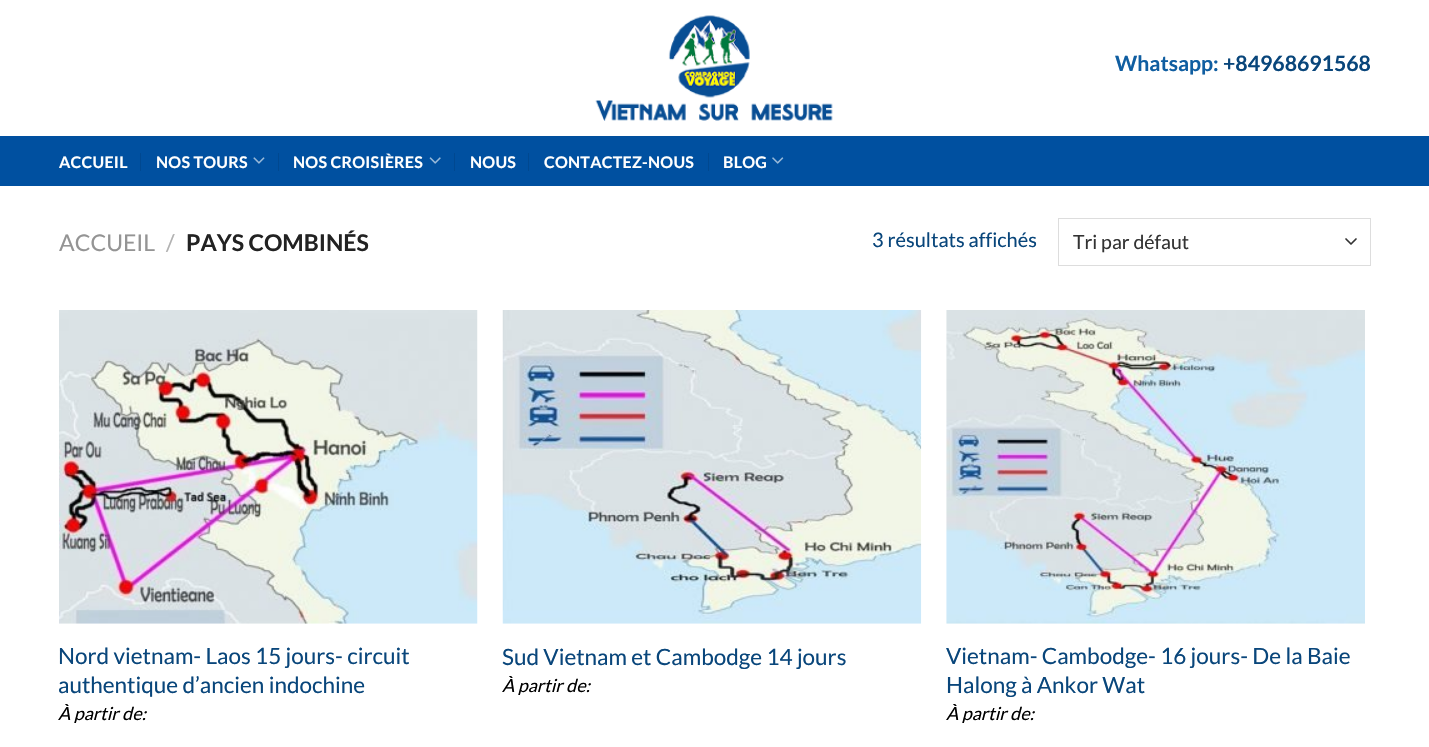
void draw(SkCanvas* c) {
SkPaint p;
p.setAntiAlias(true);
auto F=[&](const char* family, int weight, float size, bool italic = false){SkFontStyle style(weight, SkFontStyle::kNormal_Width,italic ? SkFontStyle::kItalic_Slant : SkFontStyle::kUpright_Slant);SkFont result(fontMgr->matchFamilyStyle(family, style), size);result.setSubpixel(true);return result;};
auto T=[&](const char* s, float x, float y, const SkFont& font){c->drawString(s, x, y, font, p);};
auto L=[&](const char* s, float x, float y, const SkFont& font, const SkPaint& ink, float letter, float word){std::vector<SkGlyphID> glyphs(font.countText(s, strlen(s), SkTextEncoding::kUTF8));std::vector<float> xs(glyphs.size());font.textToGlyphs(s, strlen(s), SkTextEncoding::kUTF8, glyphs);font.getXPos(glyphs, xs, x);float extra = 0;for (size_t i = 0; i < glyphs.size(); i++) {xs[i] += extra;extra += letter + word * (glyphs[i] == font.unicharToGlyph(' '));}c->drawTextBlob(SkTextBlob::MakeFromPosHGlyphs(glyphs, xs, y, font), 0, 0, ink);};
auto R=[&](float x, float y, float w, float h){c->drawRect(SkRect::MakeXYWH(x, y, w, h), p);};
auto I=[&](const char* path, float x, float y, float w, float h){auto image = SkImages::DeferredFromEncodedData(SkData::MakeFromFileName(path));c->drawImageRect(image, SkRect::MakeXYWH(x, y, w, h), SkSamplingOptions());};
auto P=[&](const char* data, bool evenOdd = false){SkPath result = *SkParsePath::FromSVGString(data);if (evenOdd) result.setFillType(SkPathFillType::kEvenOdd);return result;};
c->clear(0xffffffff);
I("1.png",595,15,238,106);
auto f1 = F("Lato",700,21.25);
p.setColor(0xff105ea1);
T("Whatsapp:",1115,71,f1);
p.setColor(0xff09467b);
T("+84968691568",1223,71,f1);
p.setColor(0xff0050a0);
R(0,136,1429,50);
p.setColor(0xff014f9c);
R(59,136,1312,1);
auto f2 = F("Lato",700,16);
p.setColor(0xffffffff);
L("ACCUEIL",59,168,f2,p,.25,0);
p.setColor(0xff004890);
R(140,153,1,18);
p.setColor(0xffffffff);
L("NOS TOURS",156,168,f2,p,.25,0);
I("2.png",253,157,12,7);
p.setColor(0xff004890);
R(278,153,1,18);
p.setColor(0xffffffff);
L("NOS CROISIÈRES",293,168,f2,p,.25,0);
I("3.png",429,157,12,7);
p.setColor(0xff004890);
R(454,153,1,18);
p.setColor(0xffffffff);
L("NOUS",470,168,f2,p,.25,0);
p.setColor(0xff004890);
R(528,153,1,18);
p.setColor(0xffffffff);
L("CONTACTEZ-NOUS",544,168,f2,p,.25,0);
p.setColor(0xff004890);
R(708,153,1,18);
p.setColor(0xffffffff);
L("BLOG",723,168,f2,p,.25,0);
I("4.png",772,157,12,7);
auto f3 = F("Lato",400,23);
p.setColor(0xff949494);
T("ACCUEIL",59,251,f3);
p.setColor(0xffb2b2b2);
T("/",166,251,f3);
auto f4 = F("Lato",700,23);
p.setColor(0xff222222);
T("PAYS COMBINÉS",186,251,f4);
auto f5 = F("Lato",400,20);
p.setColor(0xff09467b);
T("3 résultats affichés",872,247,f5);
p.setStroke(true);
p.setStrokeWidth(1.7);
p.setStrokeCap(SkPaint::kRound_Cap);
p.setStrokeJoin(SkPaint::kRound_Join);
p.setColor(0xff333333);
c->drawPath(P("M1346 239l5 5l5-5"),p);
p.setStrokeWidth(1);
p.setStrokeCap(SkPaint::kButt_Cap);
p.setStrokeJoin(SkPaint::kMiter_Join);
p.setColor(0xffdddddd);
c->drawRect(SkRect::MakeXYWH(1058.5,218.5,312,47),p);
auto f6 = F("Lato",400,19.5);
p.setStroke(false);
p.setColor(0xff333333);
T("Tri par défaut",1073,249,f6);
I("5.png",59,310,419,314);
auto f7 = F("Lato",400,22.5);
p.setColor(0xff09467b);
T("Nord vietnam- Laos 15 jours- circuit",58,664,f7);
T("authentique d’ancien indochine",58,693,f7);
auto f8 = F("Lato",400,18,true);
p.setColor(0xff000000);
T("À partir de:",58,720,f8);
I("6.png",502,310,420,314);
p.setColor(0xff09467b);
T("Sud Vietnam et Cambodge 14 jours",502,665,f7);
p.setColor(0xff000000);
T("À partir de:",502,692,f8);
I("7.png",946,310,419,314);
p.setColor(0xff09467b);
T("Vietnam- Cambodge- 16 jours- De la Baie",946,664,f7);
T("Halong à Ankor Wat",946,693,f7);
p.setColor(0xff000000);
T("À partir de:",946,720,f8);
}
